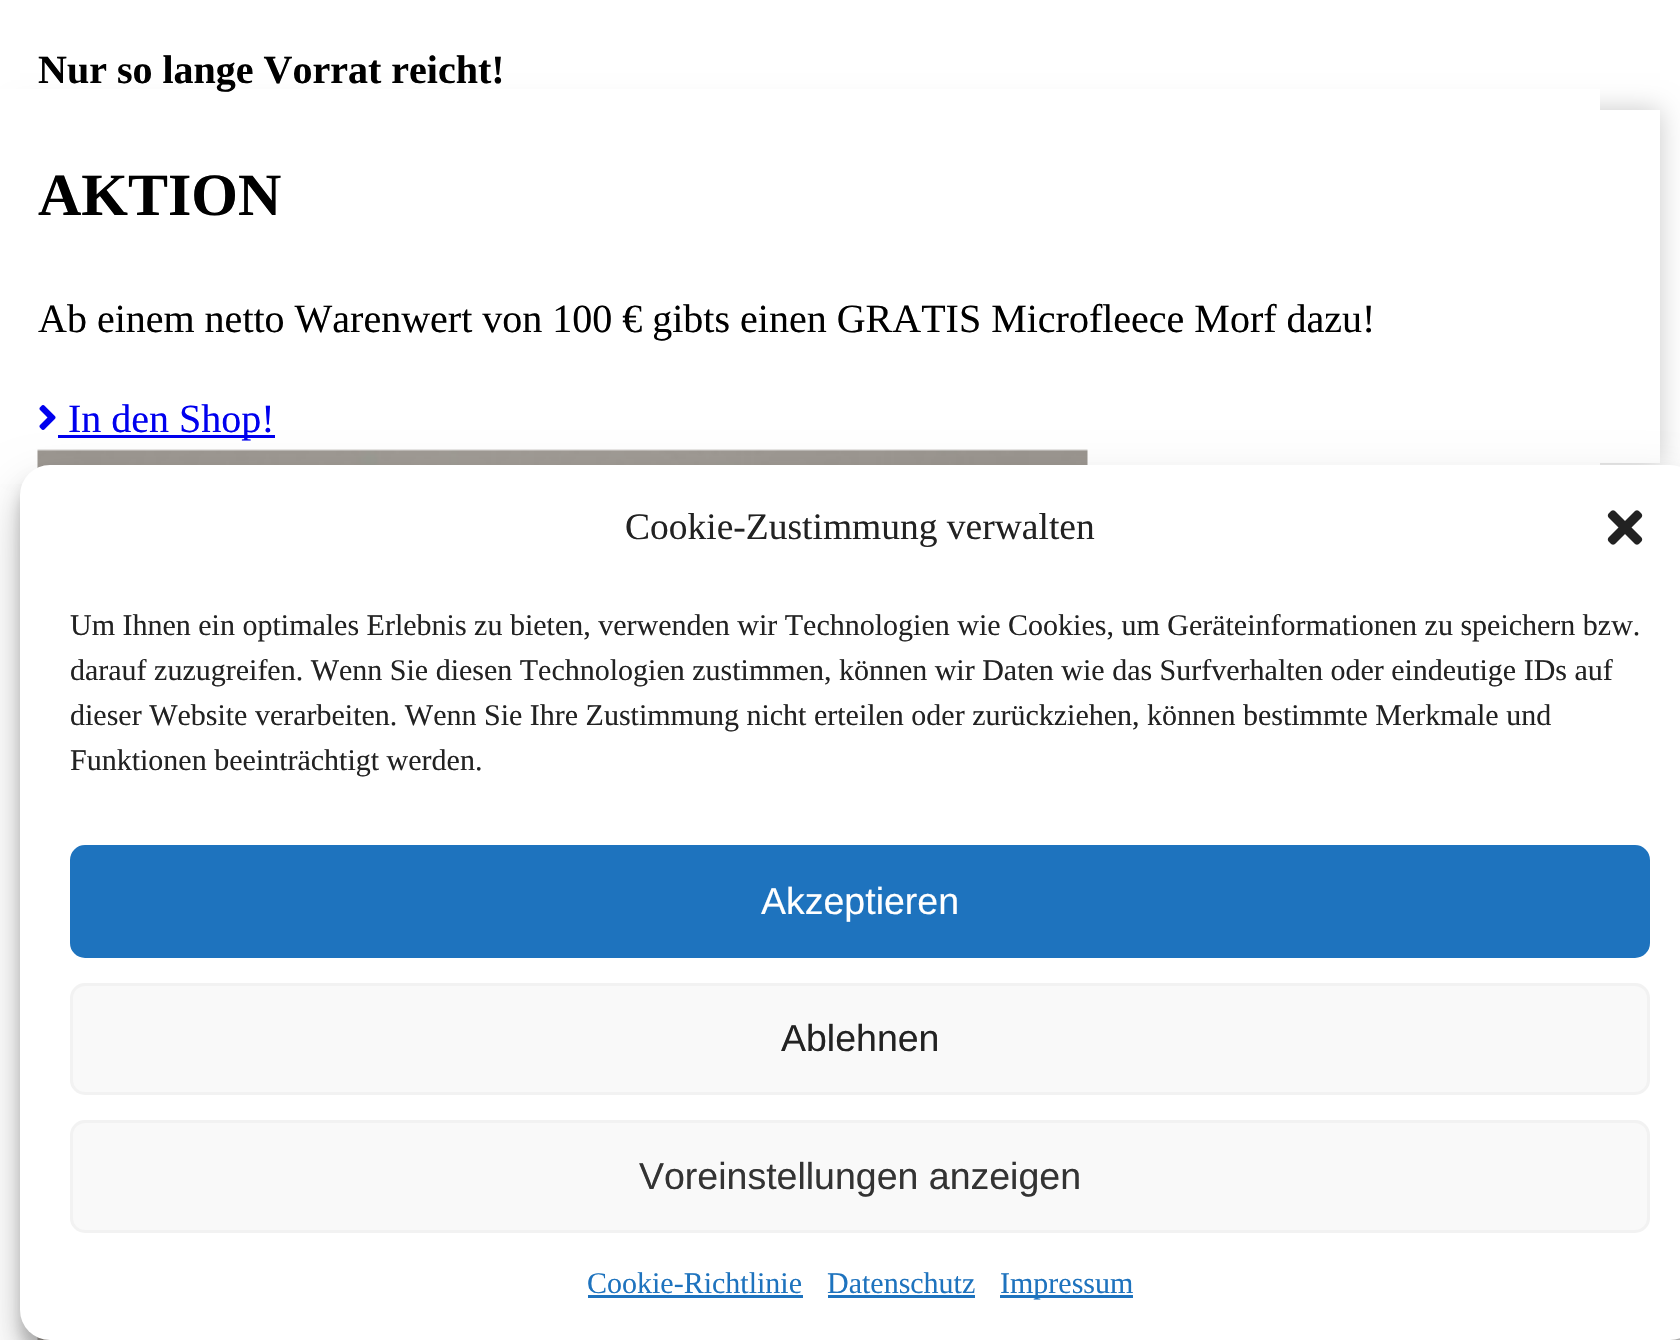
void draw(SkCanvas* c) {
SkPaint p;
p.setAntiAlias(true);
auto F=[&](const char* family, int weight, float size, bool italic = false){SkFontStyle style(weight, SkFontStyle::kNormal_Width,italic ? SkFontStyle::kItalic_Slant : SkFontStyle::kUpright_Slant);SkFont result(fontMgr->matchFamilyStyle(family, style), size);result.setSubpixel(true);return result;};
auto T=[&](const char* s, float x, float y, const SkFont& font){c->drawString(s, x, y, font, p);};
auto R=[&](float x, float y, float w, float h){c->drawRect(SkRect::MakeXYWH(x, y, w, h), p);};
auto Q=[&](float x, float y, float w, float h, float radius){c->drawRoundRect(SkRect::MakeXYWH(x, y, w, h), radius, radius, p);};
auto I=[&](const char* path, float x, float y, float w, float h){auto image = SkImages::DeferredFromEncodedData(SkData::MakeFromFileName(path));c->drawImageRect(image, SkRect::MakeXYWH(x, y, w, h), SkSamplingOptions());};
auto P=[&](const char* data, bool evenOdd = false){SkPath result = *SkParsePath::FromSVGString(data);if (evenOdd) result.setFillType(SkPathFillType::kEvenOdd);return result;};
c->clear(0xffffffff);
c->save();
c->clipPath(P("M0 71h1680v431h-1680zm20 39h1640v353h-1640z",true),true);
p.setColor(0x36000000);
p.setMaskFilter(SkMaskFilter::MakeBlur(kNormal_SkBlurStyle, 12.5));
c->drawRect(SkRect::MakeXYWH(20,110,1640,353),p);
p.setMaskFilter(nullptr);
c->restore();
p.setColor(0xffffffff);
R(0,89,1600,395);
auto f1 = F("Liberation Serif",700,40);
p.setColor(0xff000000);
T("Nur so lange Vorrat reicht!",38,83,f1);
auto f2 = F("Liberation Serif",700,60);
T("AKTION",38,215,f2);
auto f3 = F("Liberation Serif",400,40);
T("Ab einem netto Warenwert von 100 € gibts einen GRATIS Microfleece Morf dazu!",38,332,f3);
p.setColor(0xff0000ee);
R(58,435,217,3);
T("In den Shop!",68,432,f3);
I("1.png",39,405,17,25);
I("2.png",37,449,1051,891);
p.setColor(0x3b000000);
p.setMaskFilter(SkMaskFilter::MakeBlur(kNormal_SkBlurStyle, 7.5));
c->drawRoundRect(SkRect::MakeXYWH(20,480,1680,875),30,30,p);
p.setMaskFilter(nullptr);
p.setColor(0x30000000);
p.setMaskFilter(SkMaskFilter::MakeBlur(kNormal_SkBlurStyle, 25));
c->drawRoundRect(SkRect::MakeXYWH(20,490,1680,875),30,30,p);
p.setMaskFilter(nullptr);
p.setColor(0xffffffff);
Q(20,465,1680,875,30);
auto f4 = F("Liberation Serif",400,37.5);
p.setColor(0xff222222);
T("Cookie-Zustimmung verwalten",625,539,f4);
I("3.png",1607,510,36,35);
auto f5 = F("Liberation Serif",400,30);
T("Um Ihnen ein optimales Erlebnis zu bieten, verwenden wir Technologien wie Cookies, um Geräteinformationen zu speichern bzw.",70,635,f5);
T("darauf zuzugreifen. Wenn Sie diesen Technologien zustimmen, können wir Daten wie das Surfverhalten oder eindeutige IDs auf",70,680,f5);
T("dieser Website verarbeiten. Wenn Sie Ihre Zustimmung nicht erteilen oder zurückziehen, können bestimmte Merkmale und",70,725,f5);
T("Funktionen beeinträchtigt werden.",70,770,f5);
p.setColor(0xff1e73be);
c->drawRoundRect(SkRect::MakeXYWH(71.5,846.5,1577,110),13.5,13.5,p);
p.setStroke(true);
p.setStrokeWidth(3);
c->drawRoundRect(SkRect::MakeXYWH(71.5,846.5,1577,110),13.5,13.5,p);
auto f6 = F("Liberation Sans",400,37.5);
p.setStroke(false);
p.setColor(0xffffffff);
T("Akzeptieren",761,914,f6);
p.setColor(0xfff9f9f9);
c->drawRoundRect(SkRect::MakeXYWH(71.5,984.5,1577,109),13.5,13.5,p);
p.setStroke(true);
p.setColor(0xfff2f2f2);
c->drawRoundRect(SkRect::MakeXYWH(71.5,984.5,1577,109),13.5,13.5,p);
p.setStroke(false);
p.setColor(0xff222222);
T("Ablehnen",781,1051,f6);
p.setColor(0xfff9f9f9);
c->drawRoundRect(SkRect::MakeXYWH(71.5,1121.5,1577,110),13.5,13.5,p);
p.setStroke(true);
p.setColor(0xfff2f2f2);
c->drawRoundRect(SkRect::MakeXYWH(71.5,1121.5,1577,110),13.5,13.5,p);
p.setStroke(false);
p.setColor(0xff333333);
T("Voreinstellungen anzeigen",639,1189,f6);
p.setColor(0xff1e73be);
T("Cookie-Richtlinie",587,1293,f5);
R(588,1295,215,3);
T("Datenschutz",827,1293,f5);
R(828,1295,147,3);
R(1000,1295,133,3);
T("Impressum",1000,1293,f5);
}
